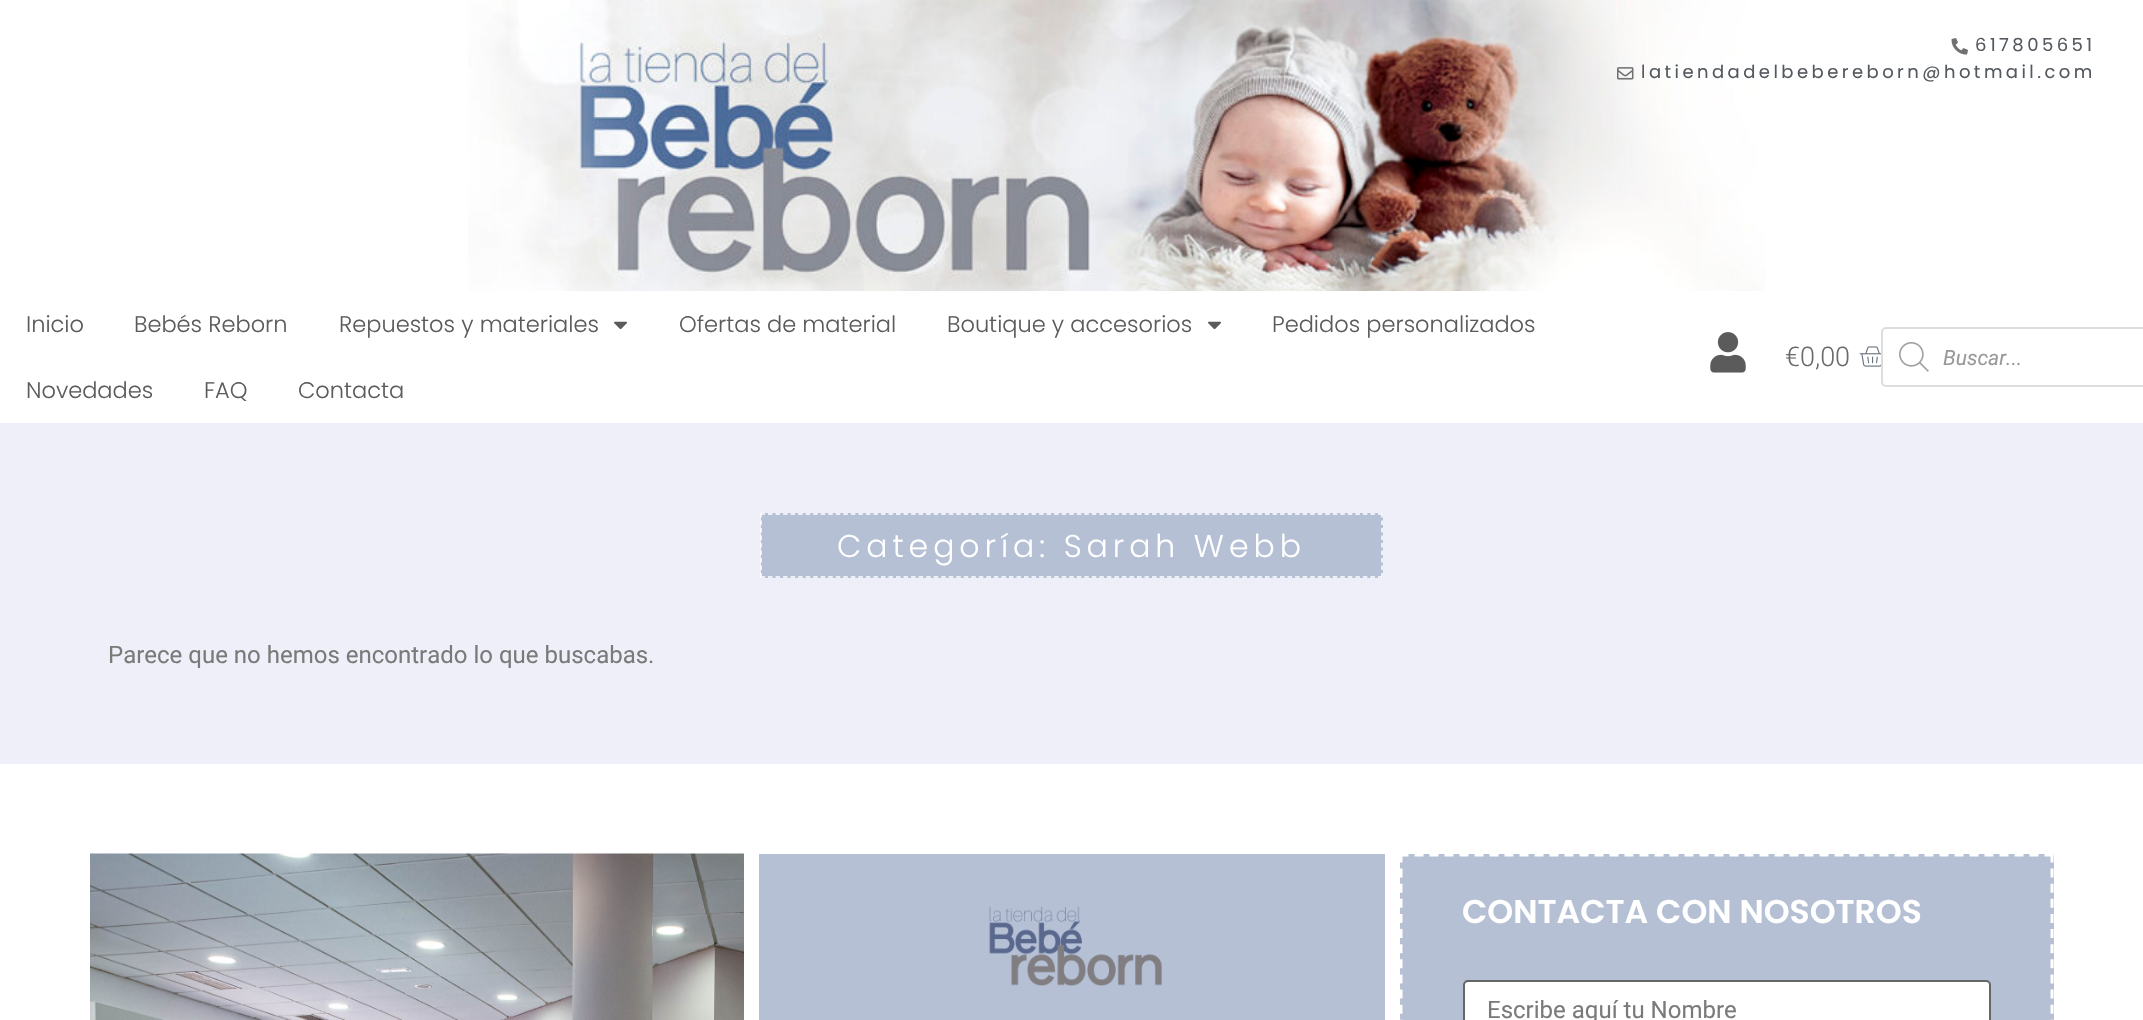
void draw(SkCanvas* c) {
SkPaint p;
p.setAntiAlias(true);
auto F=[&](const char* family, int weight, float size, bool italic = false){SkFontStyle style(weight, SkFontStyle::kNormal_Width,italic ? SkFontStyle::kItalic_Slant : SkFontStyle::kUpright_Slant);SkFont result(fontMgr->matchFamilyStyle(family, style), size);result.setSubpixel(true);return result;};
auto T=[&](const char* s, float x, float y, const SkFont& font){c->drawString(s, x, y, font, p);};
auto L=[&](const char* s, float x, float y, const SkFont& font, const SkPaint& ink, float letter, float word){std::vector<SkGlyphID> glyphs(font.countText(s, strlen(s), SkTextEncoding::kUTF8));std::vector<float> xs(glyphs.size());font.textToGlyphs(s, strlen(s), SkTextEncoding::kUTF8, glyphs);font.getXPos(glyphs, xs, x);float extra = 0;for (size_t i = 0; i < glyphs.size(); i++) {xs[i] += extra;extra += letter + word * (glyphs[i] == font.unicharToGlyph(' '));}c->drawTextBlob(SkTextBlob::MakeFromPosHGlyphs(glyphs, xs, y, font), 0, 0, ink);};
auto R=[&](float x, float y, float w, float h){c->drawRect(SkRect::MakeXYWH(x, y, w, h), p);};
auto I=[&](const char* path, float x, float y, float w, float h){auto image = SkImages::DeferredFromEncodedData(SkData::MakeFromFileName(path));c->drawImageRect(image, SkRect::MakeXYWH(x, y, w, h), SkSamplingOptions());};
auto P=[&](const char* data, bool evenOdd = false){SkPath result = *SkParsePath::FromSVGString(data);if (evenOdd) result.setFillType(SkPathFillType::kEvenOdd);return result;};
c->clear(0xffffffff);
I("1.png",468,0,1297,291);
I("2.png",1951,38,17,17);
auto f1 = F("Poppins",400,18);
p.setColor(0xff54595f);
L("617805651",1975,51,f1,p,3.45,0);
I("3.png",1617,67,17,13);
L("latiendadelbebereborn@hotmail.com",1641,78,f1,p,3.45,0);
auto f2 = F("Poppins",300,22.5);
p.setColor(0xff5b5b5b);
T("Inicio",26,332,f2);
T("Bebés Reborn",134,332,f2);
T("Repuestos y materiales",339,332,f2);
I("4.png",614,321,13,9);
T("Ofertas de material",679,332,f2);
T("Boutique y accesorios",947,332,f2);
I("4.png",1208,321,13,9);
T("Pedidos personalizados",1272,332,f2);
T("Novedades",26,398,f2);
T("FAQ",204,398,f2);
T("Contacta",298,398,f2);
I("5.png",1710,332,36,41);
auto f3 = F("Roboto",300,27);
p.setColor(0xff6b6b6b);
T("€0,00",1785,366,f3);
I("6.png",1859,346,22,21);
p.setStroke(true);
p.setStrokeWidth(2);
p.setColor(0xffdddddd);
c->drawRoundRect(SkRect::MakeXYWH(1882,328,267,58),4,4,p);
I("7.png",1899,342,30,30);
auto f4 = F("Roboto",400,21,true);
p.setStroke(false);
p.setColor(0xff999999);
T("Buscar...",1943,365,f4);
p.setColor(0xffeeeff8);
R(0,423,2143,341);
p.setColor(0xffb5c0d5);
R(761,513,622,65);
p.setStroke(true);
p.setStrokeWidth(1.5);
p.setColor(0xffffffff);
p.setPathEffect(SkDashPathEffect::Make({{4.5f,3.03f}}, 0));
c->drawPath(P("M760.5 514h622.5"),p);
p.setPathEffect(nullptr);
p.setPathEffect(SkDashPathEffect::Make({{4.5f,3}}, 0));
c->drawPath(P("M1382 513v64.5"),p);
p.setPathEffect(nullptr);
p.setPathEffect(SkDashPathEffect::Make({{4.5f,3.03f}}, 0));
c->drawPath(P("M760.5 577h622.5"),p);
p.setPathEffect(nullptr);
p.setPathEffect(SkDashPathEffect::Make({{4.5f,3}}, 0));
c->drawPath(P("M761 513v64.5"),p);
p.setPathEffect(nullptr);
auto f5 = F("Poppins",300,31.5);
p.setStroke(false);
L("Categoría: Sarah Webb",837,557,f5,p,4.95,0);
auto f6 = F("Roboto",400,24);
p.setColor(0xff7a7a7a);
T("Parece que no hemos encontrado lo que buscabas.",108,663,f6);
I("8.png",90,853,654,167);
p.setColor(0xffb5c0d5);
R(759,854,626,166);
I("9.png",989,906,173,80);
R(1400,854,654,166);
p.setStroke(true);
p.setStrokeWidth(3);
p.setColor(0xffffffff);
p.setPathEffect(SkDashPathEffect::Make({{9,6}}, 0));
c->drawPath(P("M1399.5 855h654"),p);
p.setPathEffect(nullptr);
p.setPathEffect(SkDashPathEffect::Make({{9,6.12f}}, 0));
c->drawPath(P("M2052 853.5v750"),p);
p.setPathEffect(nullptr);
p.setPathEffect(SkDashPathEffect::Make({{9,6.12f}}, 0));
c->drawPath(P("M1401 853.5v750"),p);
p.setPathEffect(nullptr);
auto f7 = F("Poppins",600,33);
p.setStroke(false);
T("CONTACTA CON NOSOTROS",1462,923,f7);
c->drawRoundRect(SkRect::MakeXYWH(1464,981,526,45),4,4,p);
p.setStroke(true);
p.setStrokeWidth(2);
p.setColor(0xff666666);
c->drawRoundRect(SkRect::MakeXYWH(1464,981,526,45),4,4,p);
p.setStroke(false);
p.setColor(0xff7a7a7a);
T("Escribe aquí tu Nombre",1487,1018,f6);
}
